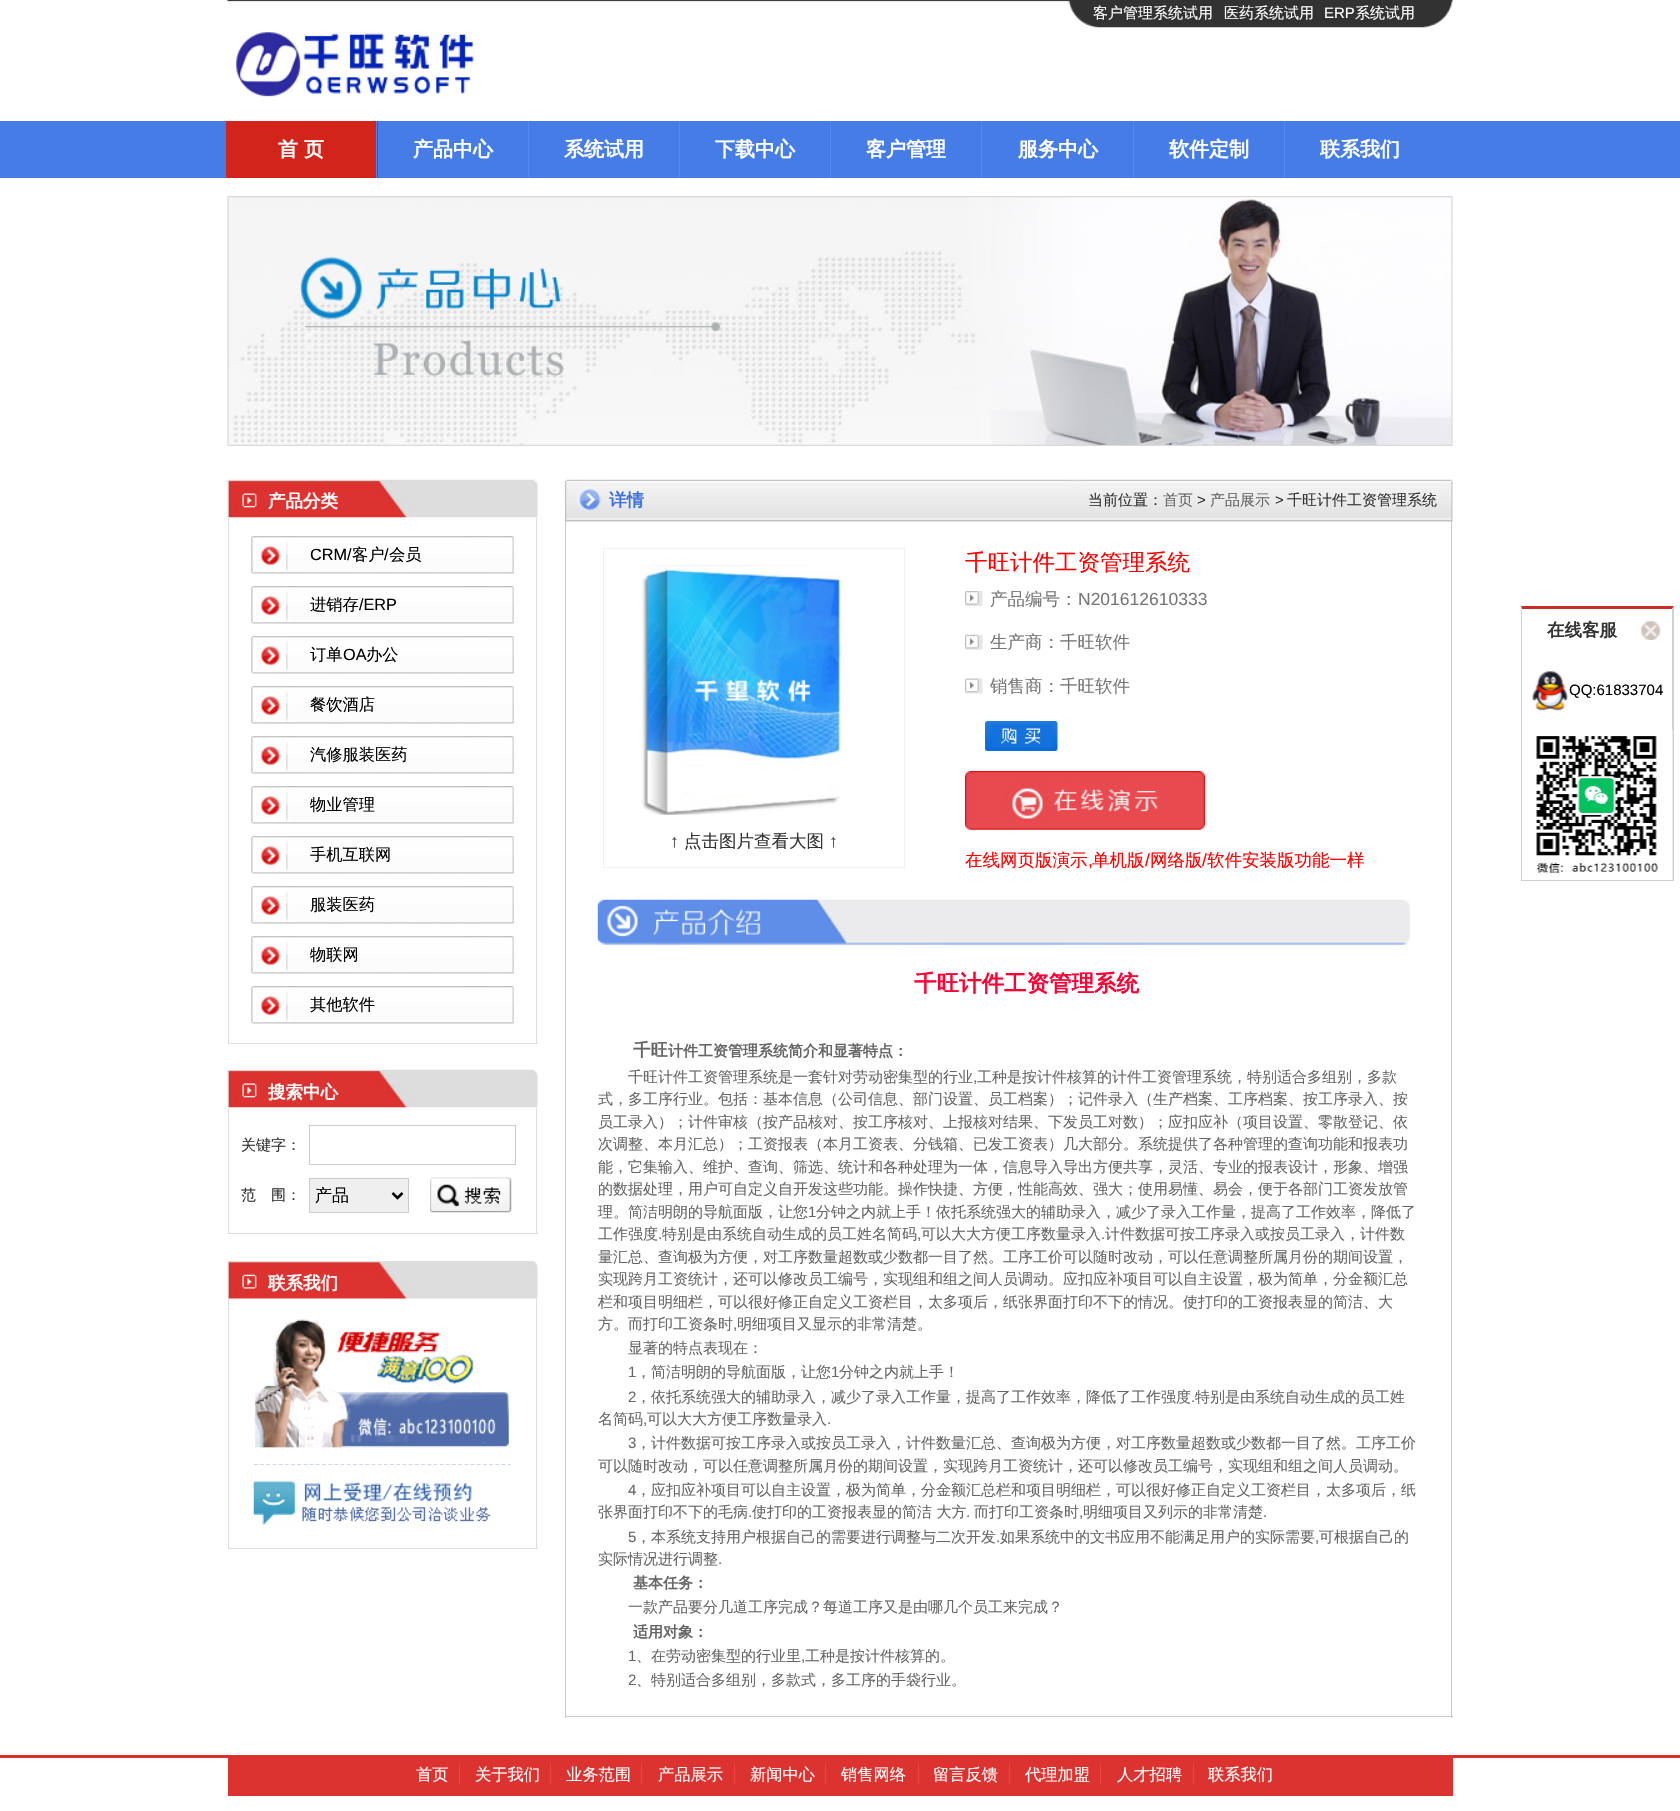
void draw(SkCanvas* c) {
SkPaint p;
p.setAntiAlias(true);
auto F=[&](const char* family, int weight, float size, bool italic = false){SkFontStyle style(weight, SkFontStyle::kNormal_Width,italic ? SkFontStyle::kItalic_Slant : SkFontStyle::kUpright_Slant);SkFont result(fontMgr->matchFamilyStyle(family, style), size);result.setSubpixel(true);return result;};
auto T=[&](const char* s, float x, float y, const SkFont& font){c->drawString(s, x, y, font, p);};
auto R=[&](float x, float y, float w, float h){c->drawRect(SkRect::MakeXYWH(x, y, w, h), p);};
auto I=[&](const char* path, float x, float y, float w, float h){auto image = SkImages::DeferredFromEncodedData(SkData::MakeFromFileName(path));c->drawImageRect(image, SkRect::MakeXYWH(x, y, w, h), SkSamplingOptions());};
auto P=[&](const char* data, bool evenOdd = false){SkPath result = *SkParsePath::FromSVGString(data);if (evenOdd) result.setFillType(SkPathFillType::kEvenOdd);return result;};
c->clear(0xffffffff);
I("1.png",227,0,1226,28);
auto f1 = F("WenQuanYi Zen Hei",500,15);
p.setColor(0xffffffff);
T("客户管理系统试用",1093,18,f1);
T("医药系统试用",1224,18,f1);
auto f2 = F("Liberation Sans",400,15);
T("ERP",1324,18,f2);
T("系统试用",1355,18,f1);
I("2.png",236,32,238,65);
p.setColor(0xff457ce6);
R(0,121,1680,57);
p.setColor(0xffd2241a);
R(226,121,152,57);
p.setColor(0xff4f85ef);
R(376,121,1,57);
auto f3 = F("WenQuanYi Zen Hei",700,20);
p.setColor(0xffffffff);
T("首 页",278,156,f3);
p.setColor(0xff538af5);
R(528,121,1,57);
p.setColor(0xffffffff);
T("产品中心",413,156,f3);
p.setColor(0xff538af5);
R(679,121,1,57);
p.setColor(0xffffffff);
T("系统试用",564,156,f3);
p.setColor(0xff538af5);
R(830,121,1,57);
p.setColor(0xffffffff);
T("下载中心",715,156,f3);
p.setColor(0xff538af5);
R(981,121,1,57);
p.setColor(0xffffffff);
T("客户管理",866,156,f3);
p.setColor(0xff538af5);
R(1133,121,1,57);
p.setColor(0xffffffff);
T("服务中心",1018,156,f3);
p.setColor(0xff538af5);
R(1284,121,1,57);
p.setColor(0xffffffff);
T("软件定制",1169,156,f3);
T("联系我们",1320,156,f3);
I("3.png",227,196,1226,250);
I("4.png",227,479,311,39);
auto f4 = F("WenQuanYi Zen Hei",700,17.5);
T("产品分类",268,507,f4);
p.setColor(0xffdddddd);
R(536,518,1,526);
R(228,1043,310,1);
R(228,518,1,526);
I("5.png",251,536,263,38);
auto f5 = F("Liberation Sans",400,16.25);
p.setColor(0xff000000);
T("CRM/",310,560,f5);
auto f6 = F("WenQuanYi Zen Hei",500,16.25);
T("客户",352,560,f6);
T("/",384,560,f5);
T("会员",389,560,f6);
I("5.png",251,586,263,38);
T("进销存",310,610,f6);
T("/ERP",359,610,f5);
I("5.png",251,636,263,38);
T("订单",310,660,f6);
T("OA",343,660,f5);
T("办公",366,660,f6);
I("5.png",251,686,263,38);
T("餐饮酒店",310,710,f6);
I("5.png",251,736,263,38);
T("汽修服装医药",310,760,f6);
I("5.png",251,786,263,38);
T("物业管理",310,810,f6);
I("5.png",251,836,263,38);
T("手机互联网",310,860,f6);
I("5.png",251,886,263,38);
T("服装医药",310,910,f6);
I("5.png",251,936,263,38);
T("物联网",310,960,f6);
I("5.png",251,986,263,38);
T("其他软件",310,1010,f6);
I("4.png",227,1069,311,39);
p.setColor(0xffffffff);
T("搜索中心",268,1098,f4);
p.setColor(0xffdddddd);
R(536,1108,1,126);
R(228,1233,310,1);
R(228,1108,1,126);
p.setColor(0xff333333);
T("关键字：",241,1150,f1);
p.setStroke(true);
p.setStrokeWidth(1);
p.setColor(0xffcccccc);
c->drawRect(SkRect::MakeXYWH(309.5,1125.5,206,39),p);
p.setStroke(false);
p.setColor(0xff333333);
T("范　围：",241,1200,f1);
p.setColor(0xffefefef);
c->drawRect(SkRect::MakeXYWH(309.5,1178.5,99,34),p);
p.setStroke(true);
p.setColor(0xffcccccc);
c->drawRect(SkRect::MakeXYWH(309.5,1178.5,99,34),p);
p.setStrokeWidth(2.5);
p.setColor(0xff000000);
c->drawPath(P("M392.5 1193l5 5l5-5"),p);
auto f7 = F("WenQuanYi Zen Hei",500,17);
p.setStroke(false);
T("产品",315,1201,f7);
I("6.png",430,1177,82,36);
I("7.png",227,1261,311,38);
p.setColor(0xffffffff);
T("联系我们",268,1289,f4);
p.setColor(0xffdddddd);
R(536,1299,1,250);
R(228,1548,310,1);
R(228,1299,1,250);
p.setStroke(true);
p.setStrokeWidth(1.2);
p.setColor(0xffccd8e7);
p.setPathEffect(SkDashPathEffect::Make({{3.75f,2.44f}}, 0));
c->drawPath(P("M254 1464.5h257"),p);
p.setPathEffect(nullptr);
I("8.png",254,1319,255,129);
I("9.png",253,1480,238,45);
I("10.png",565,479,888,42);
p.setStroke(false);
p.setColor(0xff3b72dc);
T("详情",609,506,f4);
p.setColor(0xff333333);
T("当前位置：",1088,505,f1);
p.setColor(0xff666666);
T("首页",1163,505,f1);
p.setColor(0xff333333);
T(">",1197,505,f2);
p.setColor(0xff666666);
T("产品展示",1210,505,f1);
p.setColor(0xff333333);
T(">",1275,505,f2);
T("千旺计件工资管理系统",1287,505,f1);
p.setColor(0xffdddddd);
R(565,521,888,1);
p.setColor(0xffcccbcb);
R(1451,521,1,1197);
R(565,1716,888,1);
R(565,521,1,1197);
p.setStroke(true);
p.setStrokeWidth(1);
p.setColor(0xfff1f1f1);
c->drawRect(SkRect::MakeXYWH(603.5,548.5,301,319),p);
I("11.png",641,564,207,251);
auto f8 = F("Liberation Sans",400,17.5);
p.setStroke(false);
p.setColor(0xff333333);
T("↑",670,847,f8);
auto f9 = F("WenQuanYi Zen Hei",500,17.5);
T("点击图片查看大图",684,847,f9);
T("↑",829,847,f8);
auto f10 = F("WenQuanYi Zen Hei",500,22.5);
p.setColor(0xffff0000);
T("千旺计件工资管理系统",965,570,f10);
I("12.png",965,591,18,15);
p.setColor(0xff777777);
T("产品编号：",990,605,f9);
T("N201612610333",1078,605,f8);
I("13.png",965,634,18,16);
T("生产商：千旺软件",990,648,f9);
I("14.png",965,678,18,16);
T("销售商：千旺软件",990,692,f9);
I("15.png",985,721,73,30);
I("16.png",965,771,240,59);
p.setColor(0xffff0000);
T("在线网页版演示",965,866,f9);
T(",",1088,866,f8);
T("单机版",1092,866,f9);
T("/",1145,866,f8);
T("网络版",1150,866,f9);
T("/",1202,866,f8);
T("软件安装版功能一样",1207,866,f9);
I("17.png",597,899,813,46);
auto f11 = F("WenQuanYi Zen Hei",700,22.5);
p.setColor(0xffff0033);
T("千旺计件工资管理系统",914,991,f11);
p.setColor(0xff666666);
T("千旺",633,1056,f4);
auto f12 = F("WenQuanYi Zen Hei",700,15);
T("计件工资管理系统简介和显著特点：",668,1056,f12);
T("千旺计件工资管理系统是一套针对劳动密集型的行业",628,1082,f1);
T(",",973,1082,f2);
T("工种是按计件核算的计件工资管理系统，特别适合多组别，多款",977,1082,f1);
T("式，多工序行业。包括：基本信息（公司信息、部门设置、员工档案）；记件录入（生产档案、工序档案、按工序录入、按",598,1104,f1);
T("员工录入）；计件审核（按产品核对、按工序核对、上报核对结果、下发员工对数）；应扣应补（项目设置、零散登记、依",598,1127,f1);
T("次调整、本月汇总）；工资报表（本月工资表、分钱箱、已发工资表）几大部分。系统提供了各种管理的查询功能和报表功",598,1149,f1);
T("能，它集输入、维护、查询、筛选、统计和各种处理为一体，信息导入导出方便共享，灵活、专业的报表设计，形象、增强",598,1172,f1);
T("的数据处理，用户可自定义自开发这些功能。操作快捷、方便，性能高效、强大；使用易懂、易会，便于各部门工资发放管",598,1194,f1);
T("理。简洁明朗的导航面版，让您",598,1217,f1);
T("1",808,1217,f2);
T("分钟之内就上手！依托系统强大的辅助录入，减少了录入工作量，提高了工作效率，降低了",816,1217,f1);
T("工作强度",598,1239,f1);
T(".",658,1239,f2);
T("特别是由系统自动生成的员工姓名简码",662,1239,f1);
T(",",917,1239,f2);
T("可以大大方便工序数量录入",921,1239,f1);
T(".",1101,1239,f2);
T("计件数据可按工序录入或按员工录入，计件数",1105,1239,f1);
T("量汇总、查询极为方便，对工序数量超数或少数都一目了然。工序工价可以随时改动，可以任意调整所属月份的期间设置，",598,1262,f1);
T("实现跨月工资统计，还可以修改员工编号，实现组和组之间人员调动。应扣应补项目可以自主设置，极为简单，分金额汇总",598,1284,f1);
T("栏和项目明细栏，可以很好修正自定义工资栏目，太多项后，纸张界面打印不下的情况。使打印的工资报表显的简洁、大",598,1307,f1);
T("方。而打印工资条时",598,1329,f1);
T(",",733,1329,f2);
T("明细项目又显示的非常清楚。",737,1329,f1);
T("显著的特点表现在：",628,1353,f1);
T("1",628,1377,f2);
T("，简洁明朗的导航面版，让您",636,1377,f1);
T("1",831,1377,f2);
T("分钟之内就上手！",839,1377,f1);
T("2",628,1402,f2);
T("，依托系统强大的辅助录入，减少了录入工作量，提高了工作效率，降低了工作强度",636,1402,f1);
T(".",1191,1402,f2);
T("特别是由系统自动生成的员工姓",1195,1402,f1);
T("名简码",598,1424,f1);
T(",",643,1424,f2);
T("可以大大方便工序数量录入",647,1424,f1);
T(".",827,1424,f2);
T("3",628,1448,f2);
T("，计件数据可按工序录入或按员工录入，计件数量汇总、查询极为方便，对工序数量超数或少数都一目了然。工序工价",636,1448,f1);
T("可以随时改动，可以任意调整所属月份的期间设置，实现跨月工资统计，还可以修改员工编号，实现组和组之间人员调动。",598,1471,f1);
T("4",628,1495,f2);
T("，应扣应补项目可以自主设置，极为简单，分金额汇总栏和项目明细栏，可以很好修正自定义工资栏目，太多项后，纸",636,1495,f1);
T("张界面打印不下的毛病",598,1517,f1);
T(".",748,1517,f2);
T("使打印的工资报表显的简洁 大方",752,1517,f1);
T(".",966,1517,f2);
T("而打印工资条时",974,1517,f1);
T(",",1079,1517,f2);
T("明细项目又列示的非常清楚",1083,1517,f1);
T(".",1263,1517,f2);
T("5",628,1542,f2);
T("，本系统支持用户根据自己的需要进行调整与二次开发",636,1542,f1);
T(".",996,1542,f2);
T("如果系统中的文书应用不能满足用户的实际需要",1000,1542,f1);
T(",",1315,1542,f2);
T("可根据自己的",1319,1542,f1);
T("实际情况进行调整",598,1564,f1);
T(".",718,1564,f2);
T("基本任务：",633,1588,f12);
T("一款产品要分几道工序完成？每道工序又是由哪几个员工来完成？",628,1612,f1);
T("适用对象：",633,1637,f12);
T("1",628,1661,f2);
T("、在劳动密集型的行业里",636,1661,f1);
T(",",801,1661,f2);
T("工种是按计件核算的。",805,1661,f1);
T("2",628,1685,f2);
T("、特别适合多组别，多款式，多工序的手袋行业。",636,1685,f1);
p.setColor(0xffca2d25);
c->drawPath(P("M1521 606h153l-2 3h-150z"),p);
p.setColor(0xffd1d1d1);
c->drawPath(P("M1674 606v275l-2-1v-271z"),p);
R(1521,880,153,1);
c->drawPath(P("M1521 881v-275l1 3v271z"),p);
p.setColor(0xff333333);
T("在线客服",1547,636,f4);
I("18.png",1640,621,21,19);
I("19.png",1531,671,38,41);
p.setColor(0xff000000);
T("QQ:61833704",1569,695,f2);
I("20.png",1536,730,137,150);
p.setColor(0xffdc322f);
R(0,1755,1680,3);
p.setColor(0xffdc3330);
R(228,1758,1225,38);
p.setColor(0xffffffff);
T("首页",416,1780,f6);
T("关于我们",475,1780,f6);
p.setColor(0xfff24340);
R(459,1764,1,20);
p.setColor(0xffffffff);
T("业务范围",566,1780,f6);
p.setColor(0xfff24340);
R(550,1764,1,20);
p.setColor(0xffffffff);
T("产品展示",658,1780,f6);
p.setColor(0xfff24340);
R(641,1764,1,20);
p.setColor(0xffffffff);
T("新闻中心",750,1780,f6);
p.setColor(0xfff24340);
R(734,1764,1,20);
p.setColor(0xffffffff);
T("销售网络",841,1780,f6);
p.setColor(0xfff24340);
R(825,1764,1,20);
p.setColor(0xffffffff);
T("留言反馈",933,1780,f6);
p.setColor(0xfff24340);
R(918,1764,1,20);
p.setColor(0xffffffff);
T("代理加盟",1025,1780,f6);
p.setColor(0xfff24340);
R(1009,1764,1,20);
p.setColor(0xffffffff);
T("人才招聘",1117,1780,f6);
p.setColor(0xfff24340);
R(1100,1764,1,20);
p.setColor(0xffffffff);
T("联系我们",1208,1780,f6);
p.setColor(0xfff24340);
R(1193,1764,1,20);
}
